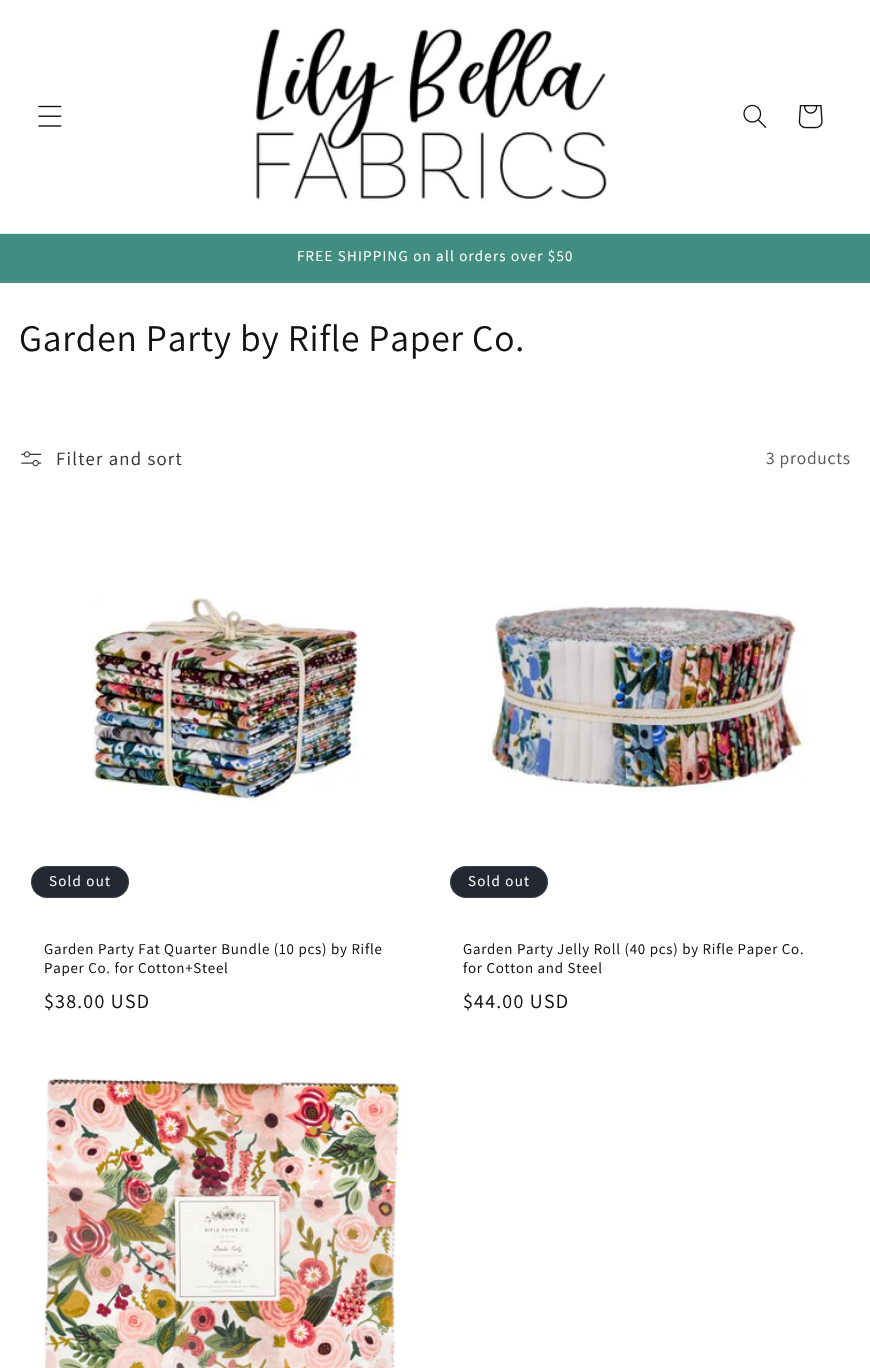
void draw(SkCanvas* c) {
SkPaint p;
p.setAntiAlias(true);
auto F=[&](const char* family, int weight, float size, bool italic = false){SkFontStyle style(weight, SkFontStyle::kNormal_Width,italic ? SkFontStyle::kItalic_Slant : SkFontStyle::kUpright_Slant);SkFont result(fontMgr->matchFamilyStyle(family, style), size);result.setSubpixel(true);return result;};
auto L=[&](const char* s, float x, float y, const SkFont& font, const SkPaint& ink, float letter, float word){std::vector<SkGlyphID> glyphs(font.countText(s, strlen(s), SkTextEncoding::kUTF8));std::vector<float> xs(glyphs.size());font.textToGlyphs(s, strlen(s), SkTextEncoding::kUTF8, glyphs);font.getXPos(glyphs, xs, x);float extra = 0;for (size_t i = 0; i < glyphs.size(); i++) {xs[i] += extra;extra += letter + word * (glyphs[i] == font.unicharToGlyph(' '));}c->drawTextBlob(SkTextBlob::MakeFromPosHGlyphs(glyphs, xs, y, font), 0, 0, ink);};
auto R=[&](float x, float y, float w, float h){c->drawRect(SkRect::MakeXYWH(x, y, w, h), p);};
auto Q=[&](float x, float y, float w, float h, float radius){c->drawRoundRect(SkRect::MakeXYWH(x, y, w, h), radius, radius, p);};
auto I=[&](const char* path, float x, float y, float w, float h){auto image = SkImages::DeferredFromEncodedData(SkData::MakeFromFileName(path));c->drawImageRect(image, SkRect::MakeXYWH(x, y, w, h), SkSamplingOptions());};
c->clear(0xffffffff);
p.setColor(0xffececec);
R(0,233,870,1);
I("1.png",38,105,24,22);
I("2.png",253,27,354,175);
I("3.png",743,104,24,24);
I("4.png",798,105,25,24);
p.setColor(0xff428d81);
R(0,234,870,49);
p.setColor(0xff51968b);
R(0,281,870,1);
auto f1 = F("Assistant",400,15);
p.setColor(0xffffffff);
L("FREE SHIPPING on all orders over $50",297,261,f1,p,1.25,0);
auto f2 = F("Assistant",400,37.5);
p.setColor(0xff121212);
L("Garden Party by Rifle Paper Co.",19,351,f2,p,.75,0);
I("5.png",21,451,21,16);
auto f3 = F("Assistant",400,18.75);
p.setColor(0xff363636);
L("Filter and sort",56,465,f3,p,1.25,0);
auto f4 = F("Assistant",400,17.5);
p.setColor(0xff595959);
L("3 products",766,464,f4,p,.75,0);
I("6.png",92,597,267,208);
p.setColor(0xff242833);
Q(31,866,98,32,16);
p.setStroke(true);
p.setStrokeWidth(1);
p.setColor(0x1affffff);
c->drawRoundRect(SkRect::MakeXYWH(31.5,866.5,97,31),15.5,15.5,p);
p.setStroke(false);
p.setColor(0xffffffff);
L("Sold out",49,886,f1,p,1.25,0);
p.setColor(0xff121212);
L("Garden Party Fat Quarter Bundle (10 pcs) by Rifle",44,954,f1,p,.75,0);
L("Paper Co. for Cotton+Steel",44,973,f1,p,.75,0);
auto f5 = F("Assistant",400,20);
L("$38.00 USD",44,1008,f5,p,1.25,0);
I("7.png",488,606,318,185);
p.setColor(0xff242833);
Q(450,866,98,32,16);
p.setStroke(true);
p.setColor(0x1affffff);
c->drawRoundRect(SkRect::MakeXYWH(450.5,866.5,97,31),15.5,15.5,p);
p.setStroke(false);
p.setColor(0xffffffff);
L("Sold out",468,886,f1,p,1.25,0);
p.setColor(0xff121212);
L("Garden Party Jelly Roll (40 pcs) by Rifle Paper Co.",463,954,f1,p,.75,0);
L("for Cotton and Steel",463,973,f1,p,.75,0);
L("$44.00 USD",463,1008,f5,p,1.25,0);
I("8.png",42,1077,363,291);
}
